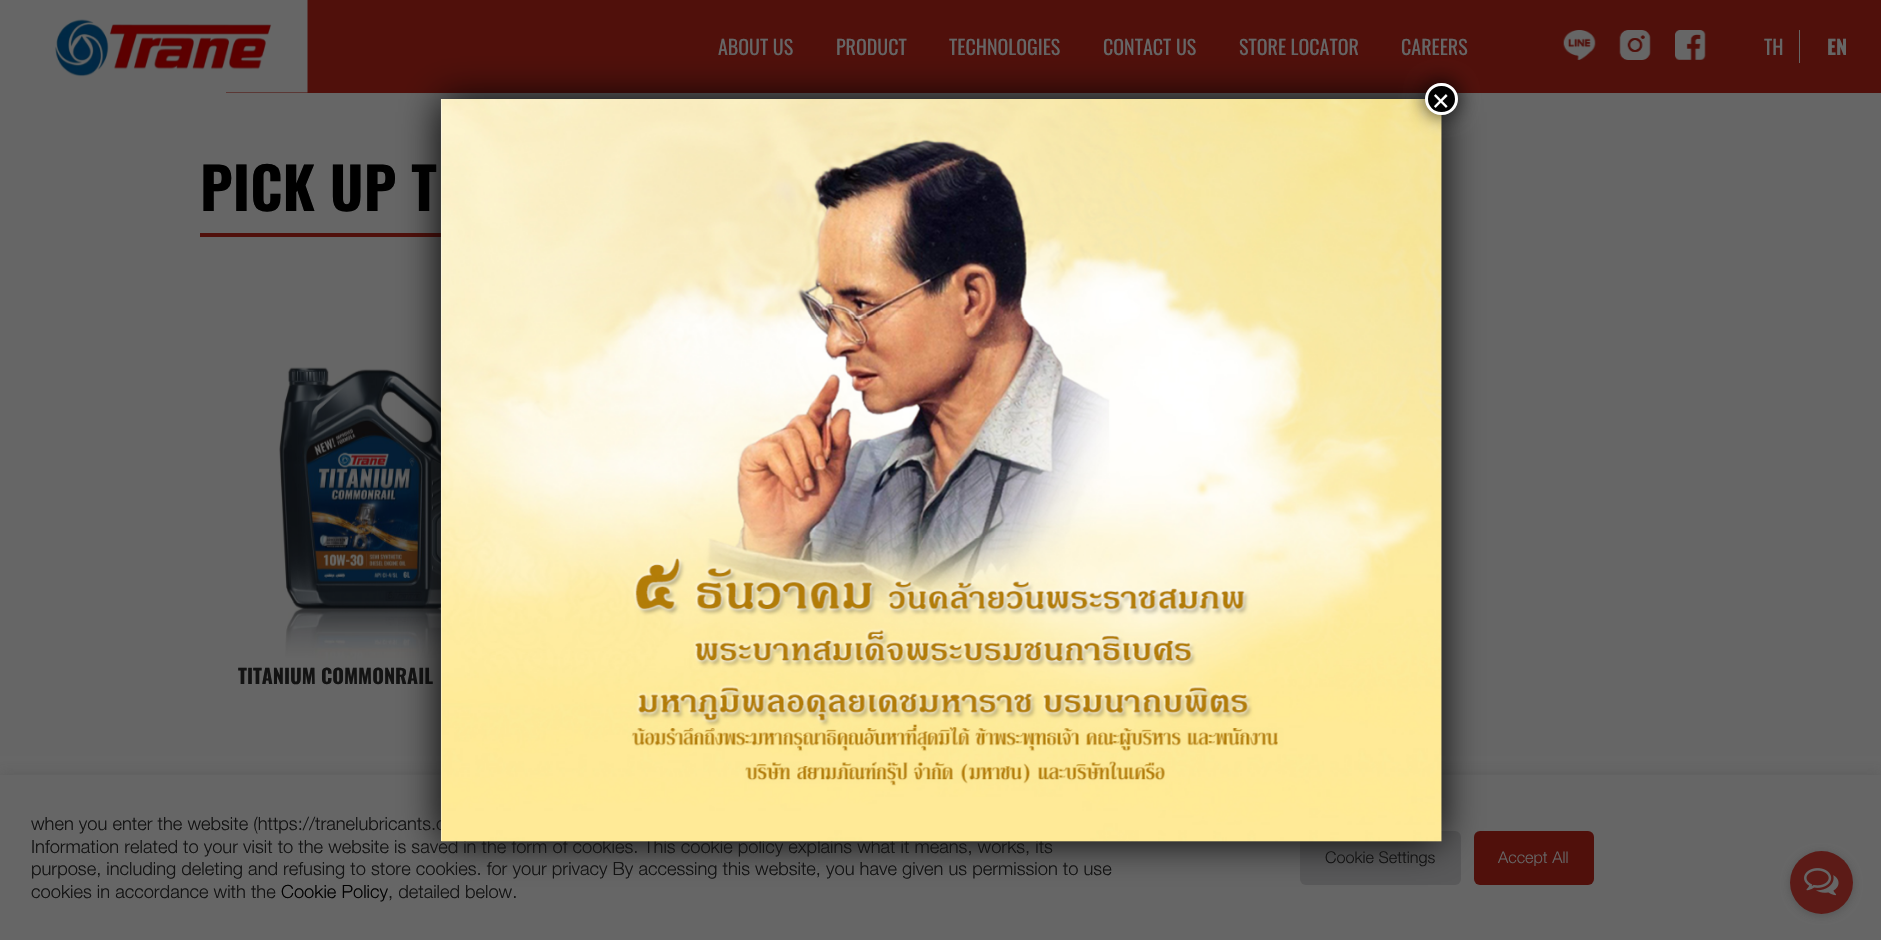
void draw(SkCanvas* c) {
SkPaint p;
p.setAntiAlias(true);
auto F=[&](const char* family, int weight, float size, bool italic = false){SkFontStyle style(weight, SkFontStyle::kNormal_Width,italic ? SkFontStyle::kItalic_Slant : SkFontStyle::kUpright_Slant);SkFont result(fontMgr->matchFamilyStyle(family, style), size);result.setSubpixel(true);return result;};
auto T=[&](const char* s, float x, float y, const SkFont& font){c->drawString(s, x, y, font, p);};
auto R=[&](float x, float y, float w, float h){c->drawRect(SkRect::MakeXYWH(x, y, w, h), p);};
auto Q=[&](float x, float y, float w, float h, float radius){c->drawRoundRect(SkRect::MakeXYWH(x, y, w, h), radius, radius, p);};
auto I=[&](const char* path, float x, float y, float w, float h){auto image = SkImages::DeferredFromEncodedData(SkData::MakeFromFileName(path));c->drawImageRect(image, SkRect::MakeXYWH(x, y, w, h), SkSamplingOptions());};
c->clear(0xff666666);
p.setColor(0xff50100b);
R(226,0,1655,93);
I("1.png",55,0,253,93);
auto f1 = F("Oswald",400,20);
p.setColor(0xff666666);
T("ABOUT US",718,55,f1);
T("PRODUCT",836,55,f1);
T("TECHNOLOGIES",949,55,f1);
T("CONTACT US",1103,55,f1);
T("STORE LOCATOR",1239,55,f1);
T("CAREERS",1401,55,f1);
I("2.png",1563,30,33,30);
I("3.png",1619,30,32,30);
I("4.png",1675,30,31,30);
R(1799,30,1,33);
T("TH",1764,55,f1);
auto f2 = F("Oswald",700,20);
T("EN",1827,55,f2);
auto f3 = F("Oswald",700,57.5);
p.setColor(0xff000000);
T("PICK UP T",200,211,f3);
p.setColor(0xff50100b);
R(200,233,241,4);
I("5.png",279,367,162,293);
p.setColor(0xff131313);
T("TITANIUM COMMONRAIL",238,684,f2);
p.setColor(0x4d454444);
p.setMaskFilter(SkMaskFilter::MakeBlur(kNormal_SkBlurStyle, 6));
c->drawRect(SkRect::MakeXYWH(0,774,1881,165),p);
p.setMaskFilter(nullptr);
p.setColor(0xff666666);
R(0,775,1881,165);
p.setColor(0xff59595a);
Q(1300,831,161,54,6);
p.setColor(0xff50100b);
Q(1474,831,120,54,6);
p.setColor(0xff020202);
p.setMaskFilter(SkMaskFilter::MakeBlur(kNormal_SkBlurStyle, 19));
c->drawRect(SkRect::MakeXYWH(441,99,1000,742),p);
p.setMaskFilter(nullptr);
auto f4 = F("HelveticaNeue",300,18.33);
p.setColor(0xff131313);
T("when you enter the website (https://tranelubricants.c",31,830,f4);
T("Information related to your visit to the website is saved in the form of cookies. This cookie policy explains what it means, works, its",31,853,f4);
p.setColor(0xffffffff);
R(441,99,1000,742);
I("6.png",440,99,1002,743);
p.setColor(0xbf020202);
p.setMaskFilter(SkMaskFilter::MakeBlur(kNormal_SkBlurStyle, 9.5));
c->drawRoundRect(SkRect::MakeXYWH(1424,81,35,35),17.5,17.5,p);
p.setMaskFilter(nullptr);
p.setColor(0xff000000);
c->drawRoundRect(SkRect::MakeXYWH(1426.5,84.5,30,29),14.5,14.5,p);
p.setStroke(true);
p.setStrokeWidth(3);
p.setColor(0xffffffff);
c->drawRoundRect(SkRect::MakeXYWH(1426.5,84.5,30,29),14.5,14.5,p);
auto f5 = F("Liberation Sans",400,30);
p.setStroke(false);
T("×",1432,111,f5);
p.setColor(0xff131313);
T("purpose, including deleting and refusing to store cookies. for your privacy By accessing this website, you have given us permission to use",31,875,f4);
T("cookies in accordance with the",31,898,f4);
p.setColor(0xff000000);
T("Cookie Policy",281,898,f4);
p.setColor(0xff131313);
T(", detailed below.",388,898,f4);
auto f6 = F("HelveticaNeue",300,16.25);
T("Cookie Settings",1325,863,f6);
p.setColor(0xff666666);
T("Accept All",1498,863,f6);
p.setColor(0x66363636);
p.setMaskFilter(SkMaskFilter::MakeBlur(kNormal_SkBlurStyle, 4.5));
c->drawRoundRect(SkRect::MakeXYWH(1790,853,63,62),31,31,p);
p.setMaskFilter(nullptr);
p.setColor(0xff5c1b17);
c->drawCircle(1821.5,882.5,31.5,p);
I("7.png",1804,868,35,28);
}
